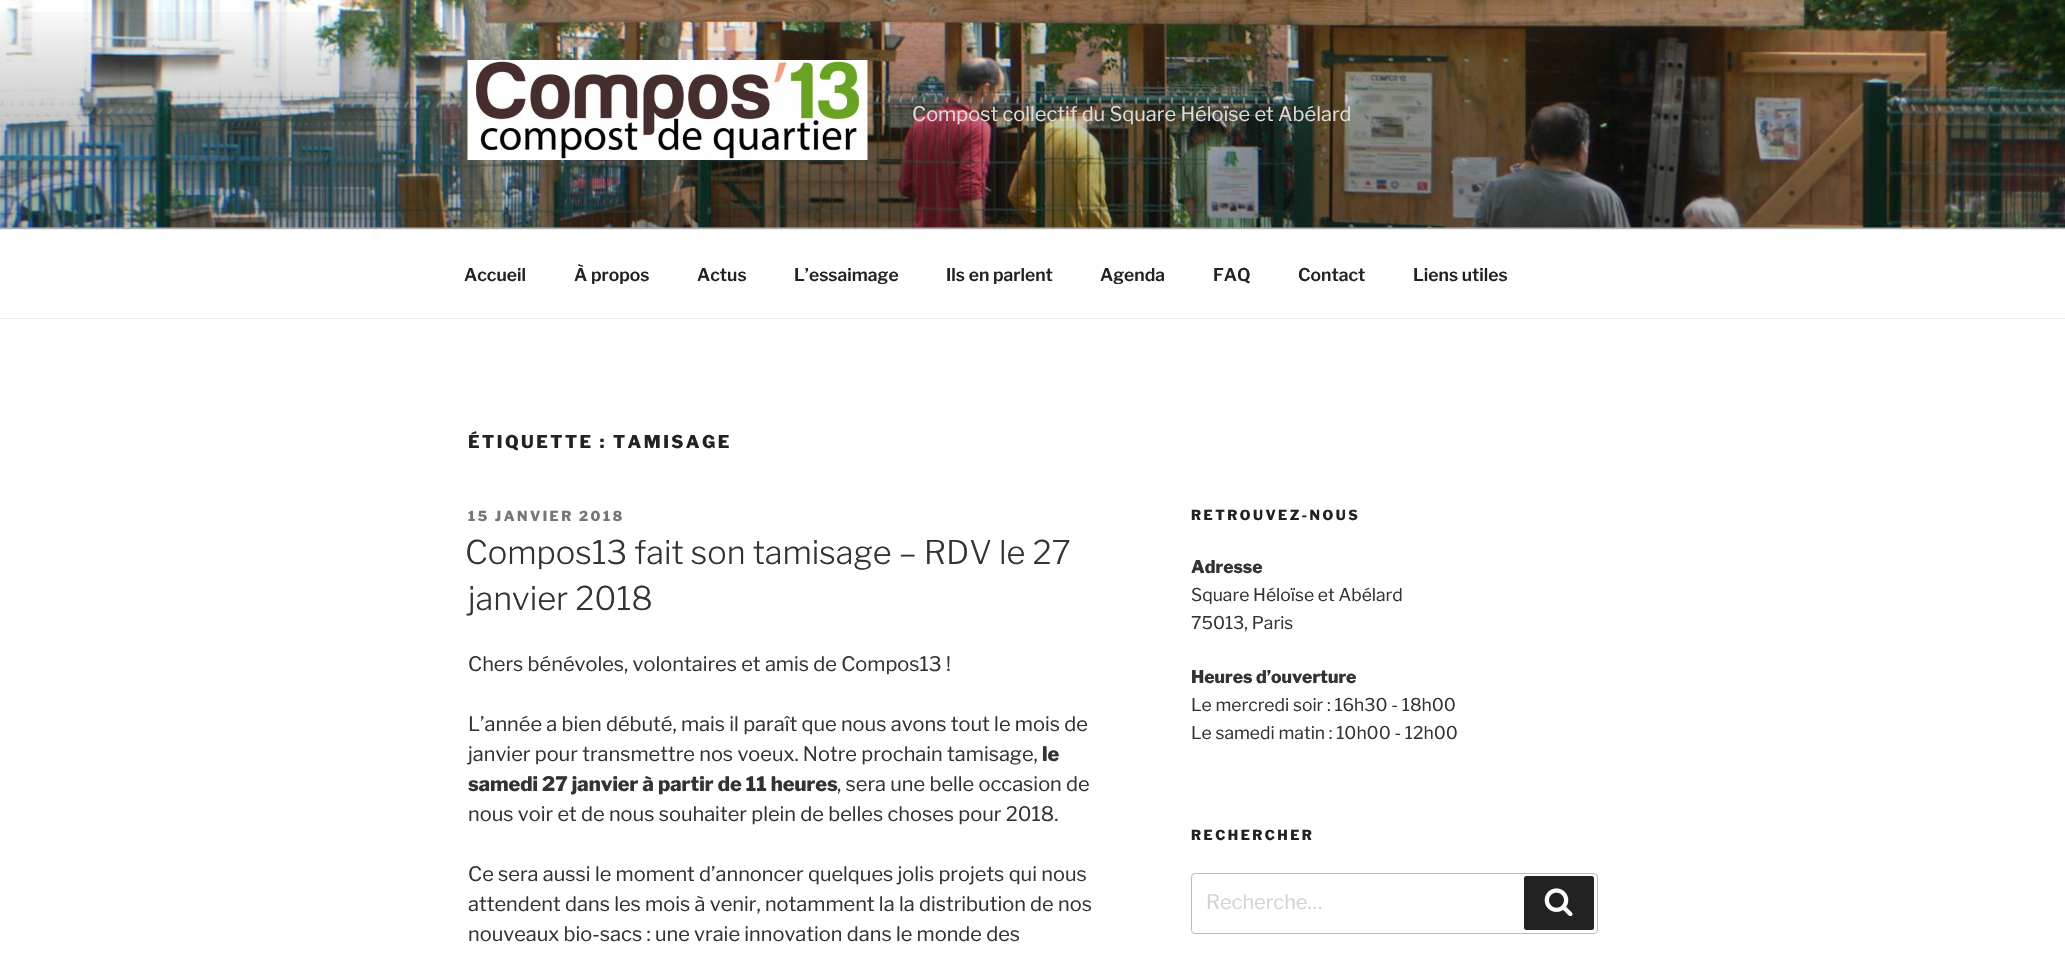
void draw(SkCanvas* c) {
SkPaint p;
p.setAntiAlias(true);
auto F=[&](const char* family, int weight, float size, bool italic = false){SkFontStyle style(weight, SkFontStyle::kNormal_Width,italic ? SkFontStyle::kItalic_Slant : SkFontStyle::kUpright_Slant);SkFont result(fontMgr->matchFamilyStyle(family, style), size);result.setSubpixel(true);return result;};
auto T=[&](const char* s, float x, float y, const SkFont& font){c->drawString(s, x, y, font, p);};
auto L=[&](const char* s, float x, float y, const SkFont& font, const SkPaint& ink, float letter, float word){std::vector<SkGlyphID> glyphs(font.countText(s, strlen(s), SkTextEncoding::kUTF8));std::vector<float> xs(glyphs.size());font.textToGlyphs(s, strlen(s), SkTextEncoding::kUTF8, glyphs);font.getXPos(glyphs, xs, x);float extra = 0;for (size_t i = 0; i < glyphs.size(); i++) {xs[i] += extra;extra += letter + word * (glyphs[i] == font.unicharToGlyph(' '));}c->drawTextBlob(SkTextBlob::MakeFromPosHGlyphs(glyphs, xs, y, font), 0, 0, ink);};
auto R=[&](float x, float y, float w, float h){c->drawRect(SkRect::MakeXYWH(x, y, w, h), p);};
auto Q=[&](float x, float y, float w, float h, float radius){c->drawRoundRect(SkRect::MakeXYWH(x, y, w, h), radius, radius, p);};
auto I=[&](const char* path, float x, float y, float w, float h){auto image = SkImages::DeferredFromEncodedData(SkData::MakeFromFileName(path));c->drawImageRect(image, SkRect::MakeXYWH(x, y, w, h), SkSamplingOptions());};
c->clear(0xffffffff);
p.setColor(0xfffafafa);
R(0,227,2065,2);
I("1.png",0,0,2065,228);
{
const SkColor colors[] = {0x00000000,0x4d000000,0x4d000000};
const float stops[] = {0,.75,1};
const SkPoint ends[] = {{1033,0}, {1033,229}};
p.setShader(SkGradientShader::MakeLinear(ends, colors, stops, 3, SkTileMode::kClamp));
p.setAlpha(255);
}
R(0,12,2065,217);
I("2.png",467,60,401,100);
auto f1 = F("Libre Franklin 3",100,20);
p.setShader(nullptr);
p.setColor(0xffdddad8);
T("Compost collectif du Square Héloïse et Abélard",912,121,f1);
p.setColor(0xffeeeeee);
R(0,229,2065,1);
R(0,318,2065,1);
auto f2 = F("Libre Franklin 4",100,17.5);
p.setColor(0xff222222);
T("Accueil",464,281,f2);
T("À propos",574,281,f2);
T("Actus",697,281,f2);
T("L’essaimage",794,281,f2);
T("Ils en parlent",946,281,f2);
T("Agenda",1100,281,f2);
T("FAQ",1213,281,f2);
T("Contact",1298,281,f2);
T("Liens utiles",1413,281,f2);
auto f3 = F("Libre Franklin",100,17.5);
L("ÉTIQUETTE : TAMISAGE",468,448,f3,p,2.5,0);
auto f4 = F("Libre Franklin",100,13.75);
p.setColor(0xff767676);
L("15 JANVIER 2018",468,521,f4,p,2.5,0);
auto f5 = F("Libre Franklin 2",100,32.5);
p.setColor(0xff333333);
T("Compos13 fait son tamisage – RDV le 27",465,564,f5);
T("janvier 2018",468,610,f5);
T("Chers bénévoles, volontaires et amis de Compos13 !",468,671,f1);
T("L’année a bien débuté, mais il paraît que nous avons tout le mois de",468,731,f1);
T("janvier pour transmettre nos voeux. Notre prochain tamisage,",468,761,f1);
auto f6 = F("Libre Franklin",100,20);
T("le",1042,761,f6);
T("samedi 27 janvier à partir de 11 heures",468,791,f6);
T(", sera une belle occasion de",837,791,f1);
T("nous voir et de nous souhaiter plein de belles choses pour 2018.",468,821,f1);
T("Ce sera aussi le moment d’annoncer quelques jolis projets qui nous",468,881,f1);
T("attendent dans les mois à venir, notamment la la distribution de nos",468,911,f1);
T("nouveaux bio-sacs : une vraie innovation dans le monde des",468,941,f1);
p.setColor(0xff222222);
L("RETROUVEZ-NOUS",1191,520,f4,p,2.5,0);
p.setColor(0xff333333);
T("Adresse",1191,573,f3);
auto f7 = F("Libre Franklin 3",100,17.5);
T("Square Héloïse et Abélard",1191,601,f7);
T("75013, Paris",1191,629,f7);
T("Heures d’ouverture",1191,683,f3);
T("Le mercredi soir : 16h30 - 18h00",1191,711,f7);
T("Le samedi matin : 10h00 - 12h00",1191,739,f7);
p.setColor(0xff222222);
L("RECHERCHER",1191,840,f4,p,2.5,0);
p.setStroke(true);
p.setStrokeWidth(1);
p.setColor(0xffbbbbbb);
c->drawRoundRect(SkRect::MakeXYWH(1191.5,873.5,406,60),3.5,3.5,p);
p.setStroke(false);
p.setColor(0xffd3d3d3);
T("Recherche…",1206,909,f1);
p.setColor(0xff222222);
Q(1524,876,70,54,2.5);
I("3.png",1544,888,29,28);
}
